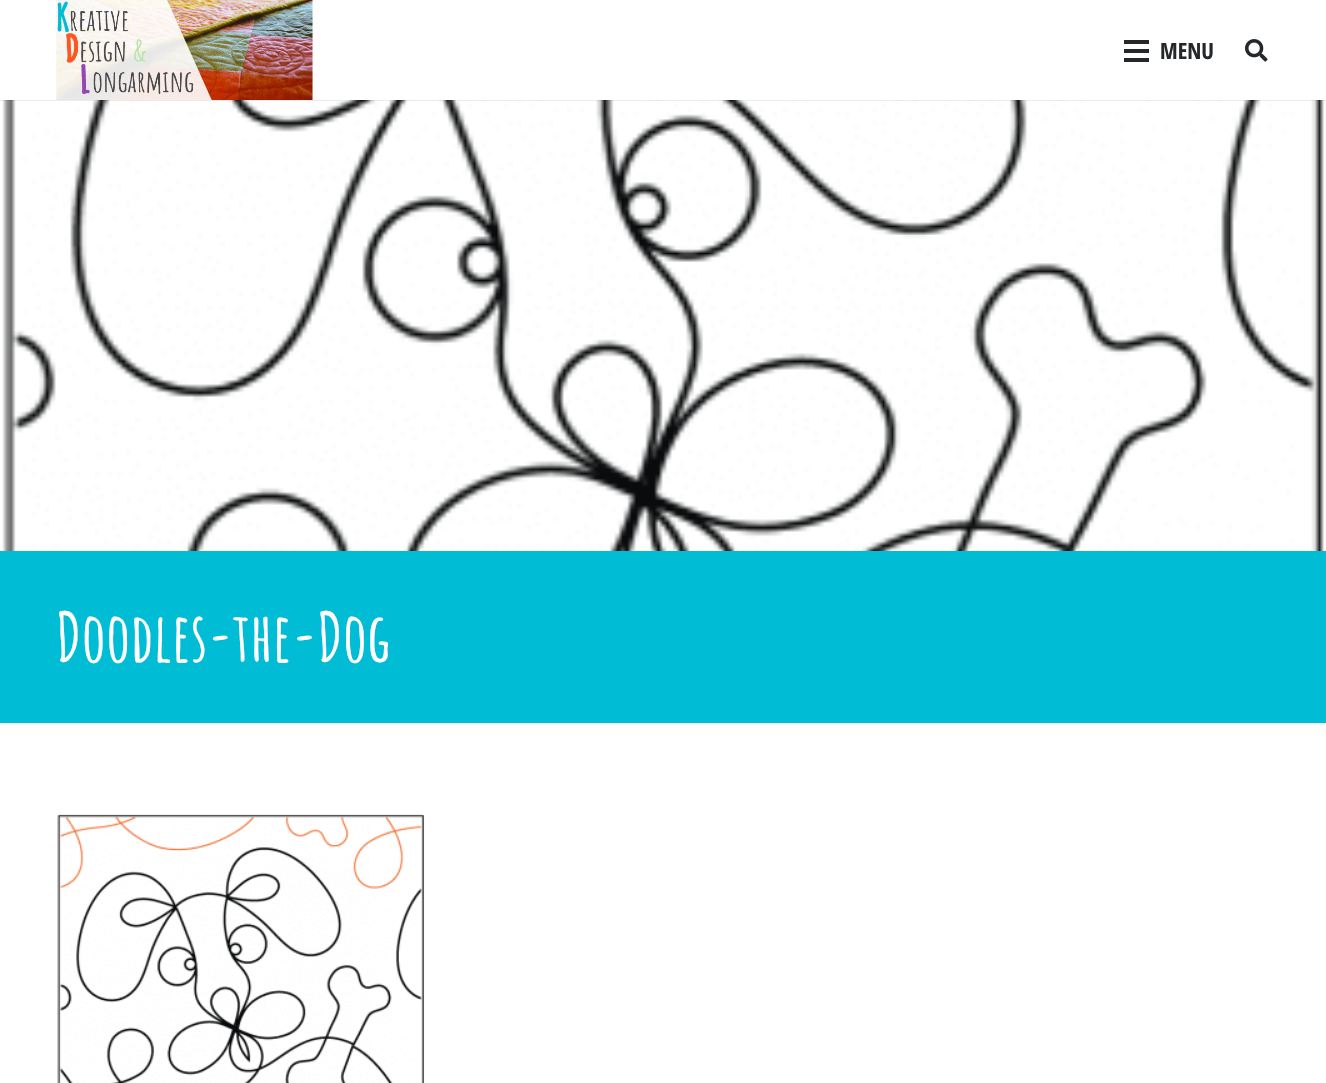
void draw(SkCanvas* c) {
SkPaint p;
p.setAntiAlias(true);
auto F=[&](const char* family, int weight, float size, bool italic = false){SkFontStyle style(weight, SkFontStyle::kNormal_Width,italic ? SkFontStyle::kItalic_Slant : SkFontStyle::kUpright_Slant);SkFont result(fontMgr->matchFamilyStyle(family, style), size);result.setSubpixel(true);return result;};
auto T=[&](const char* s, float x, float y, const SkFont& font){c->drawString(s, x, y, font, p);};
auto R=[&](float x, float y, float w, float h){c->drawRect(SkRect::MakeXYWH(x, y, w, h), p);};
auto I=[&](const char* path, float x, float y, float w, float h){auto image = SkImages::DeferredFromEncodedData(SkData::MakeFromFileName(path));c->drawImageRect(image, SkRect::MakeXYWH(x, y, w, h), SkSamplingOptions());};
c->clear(0xffffffff);
I("3.png",0,100,1326,451);
p.setColor(0x14000000);
R(0,100,1326,1);
I("1.png",56,0,257,100);
p.setColor(0xff25282b);
R(1124,49,25,4);
R(1124,40,25,4);
R(1124,58,25,4);
auto f1 = F("Open Sans Condensed",700,22.5);
T("MENU",1160,59,f1);
I("2.png",1245,39,23,23);
p.setColor(0xff00bcd4);
R(0,551,1326,172);
auto f2 = F("Amatic SC",700,67.5);
p.setColor(0xffffffff);
T("Doodles-the-Dog",56,662,f2);
I("4.png",57,814,368,269);
}
